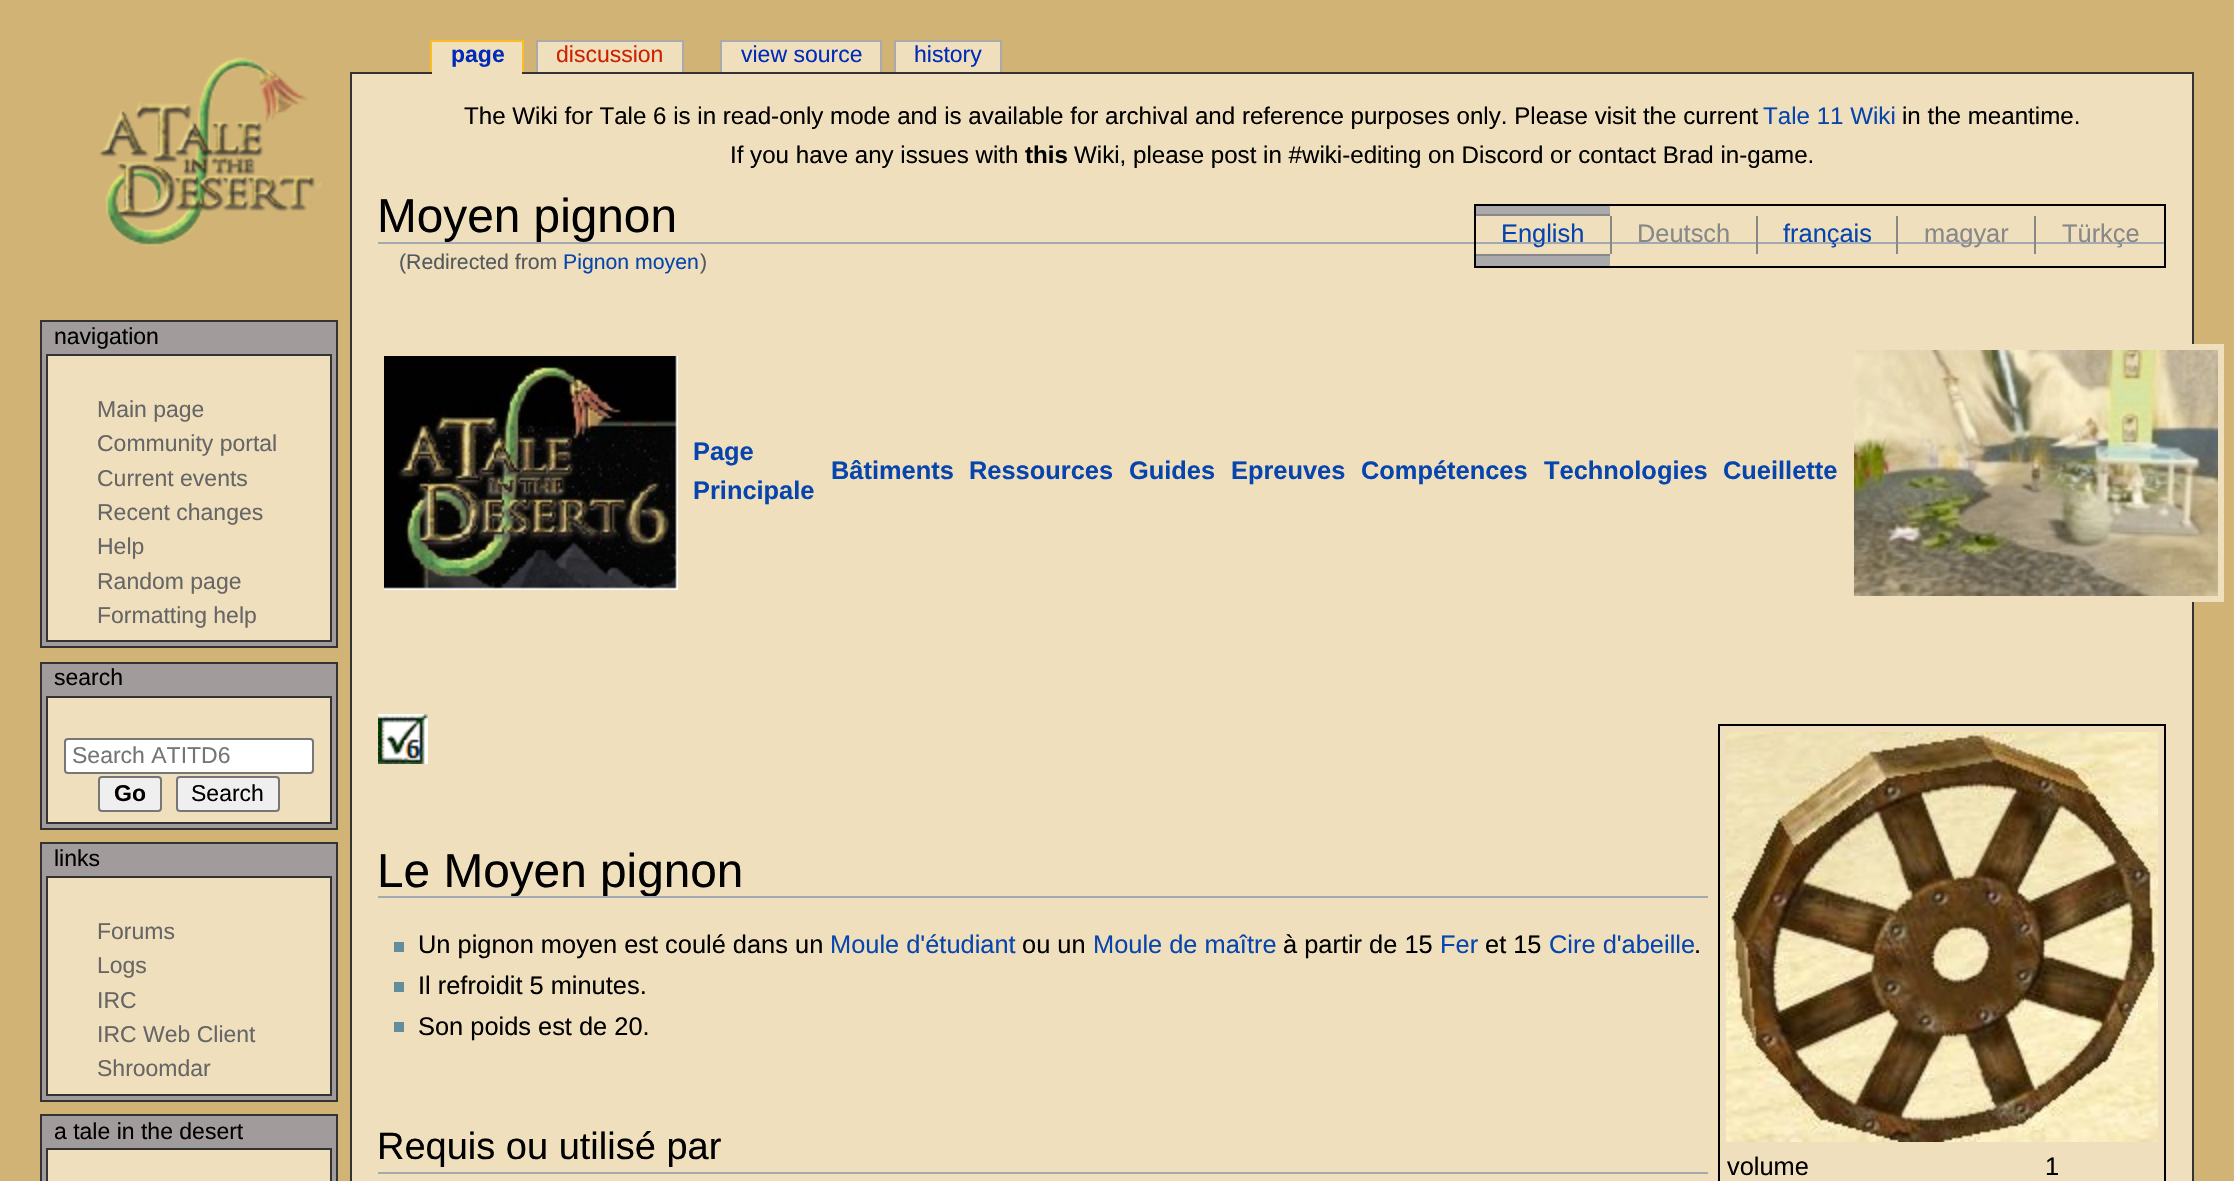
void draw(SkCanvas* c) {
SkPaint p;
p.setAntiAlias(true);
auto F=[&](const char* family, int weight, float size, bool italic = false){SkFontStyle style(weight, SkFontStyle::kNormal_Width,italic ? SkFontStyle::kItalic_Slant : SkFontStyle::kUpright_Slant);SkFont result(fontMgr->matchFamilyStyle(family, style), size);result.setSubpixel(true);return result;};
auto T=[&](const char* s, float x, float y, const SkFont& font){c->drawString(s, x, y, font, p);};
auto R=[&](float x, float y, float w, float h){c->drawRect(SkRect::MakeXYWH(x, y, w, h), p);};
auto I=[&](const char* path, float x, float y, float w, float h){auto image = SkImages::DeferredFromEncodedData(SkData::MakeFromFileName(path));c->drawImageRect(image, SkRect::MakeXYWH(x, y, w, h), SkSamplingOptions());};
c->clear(0xffd1b475);
I("1.png",99,57,223,189);
p.setColor(0xffefdfbd);
c->drawRect(SkRect::MakeXYWH(351,73,1842,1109),p);
p.setStroke(true);
p.setStrokeWidth(2);
p.setColor(0xff333333);
c->drawRect(SkRect::MakeXYWH(351,73,1842,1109),p);
p.setStroke(false);
p.setColor(0xffefdfbd);
R(432,42,90,32);
auto f1 = F("Liberation Sans",700,23);
p.setColor(0xff002bb8);
T("page",451,62,f1);
p.setColor(0xfffabd23);
R(430,40,94,2);
R(522,40,2,32);
R(430,40,2,32);
p.setColor(0xffefdfbd);
R(538,42,144,30);
auto f2 = F("Liberation Sans",400,23);
p.setColor(0xffcc2200);
T("discussion",556,62,f2);
p.setColor(0xffaaaaaa);
R(536,40,148,2);
R(682,40,2,32);
R(536,40,2,32);
p.setColor(0xffefdfbd);
R(722,42,158,30);
p.setColor(0xff002bb8);
T("view source",741,62,f2);
p.setColor(0xffaaaaaa);
R(720,40,162,2);
R(880,40,2,32);
R(720,40,2,32);
p.setColor(0xffefdfbd);
R(896,42,104,30);
p.setColor(0xff002bb8);
T("history",914,62,f2);
p.setColor(0xffaaaaaa);
R(894,40,108,2);
R(1000,40,2,32);
R(894,40,2,32);
p.setColor(0xffa29b9b);
c->drawRect(SkRect::MakeXYWH(41,321,296,326),p);
p.setStroke(true);
p.setColor(0xff333333);
c->drawRect(SkRect::MakeXYWH(41,321,296,326),p);
p.setStroke(false);
p.setColor(0xff000000);
T("navigation",54,344,f2);
p.setColor(0xffefdfbd);
c->drawRect(SkRect::MakeXYWH(47,355,284,286),p);
p.setStroke(true);
p.setColor(0xff333333);
c->drawRect(SkRect::MakeXYWH(47,355,284,286),p);
p.setStroke(false);
p.setColor(0xff666666);
T("Main page",97,417,f2);
T("Community portal",97,451,f2);
T("Current events",97,486,f2);
T("Recent changes",97,520,f2);
T("Help",97,554,f2);
T("Random page",97,589,f2);
T("Formatting help",97,623,f2);
p.setColor(0xffa29b9b);
c->drawRect(SkRect::MakeXYWH(41,663,296,166),p);
p.setStroke(true);
p.setColor(0xff333333);
c->drawRect(SkRect::MakeXYWH(41,663,296,166),p);
p.setStroke(false);
p.setColor(0xff000000);
T("search",54,685,f2);
p.setColor(0xffefdfbd);
c->drawRect(SkRect::MakeXYWH(47,697,284,126),p);
p.setStroke(true);
p.setColor(0xff333333);
c->drawRect(SkRect::MakeXYWH(47,697,284,126),p);
p.setStroke(false);
p.setColor(0xffffffff);
c->drawRoundRect(SkRect::MakeXYWH(65,739,248,34),3,3,p);
p.setStroke(true);
p.setColor(0xff767676);
c->drawRoundRect(SkRect::MakeXYWH(65,739,248,34),3,3,p);
p.setStroke(false);
p.setColor(0xff757575);
T("Search ATITD6",72,763,f2);
p.setColor(0xffefefef);
c->drawRoundRect(SkRect::MakeXYWH(99,777,62,34),3,3,p);
p.setStroke(true);
p.setColor(0xff767676);
c->drawRoundRect(SkRect::MakeXYWH(99,777,62,34),3,3,p);
p.setStroke(false);
p.setColor(0xff000000);
T("Go",114,801,f1);
p.setColor(0xffefefef);
c->drawRoundRect(SkRect::MakeXYWH(177,777,102,34),3,3,p);
p.setStroke(true);
p.setColor(0xff767676);
c->drawRoundRect(SkRect::MakeXYWH(177,777,102,34),3,3,p);
p.setStroke(false);
p.setColor(0xff000000);
T("Search",191,801,f2);
p.setColor(0xffa29b9b);
c->drawRect(SkRect::MakeXYWH(41,843,296,258),p);
p.setStroke(true);
p.setColor(0xff333333);
c->drawRect(SkRect::MakeXYWH(41,843,296,258),p);
p.setStroke(false);
p.setColor(0xff000000);
T("links",54,866,f2);
p.setColor(0xffefdfbd);
c->drawRect(SkRect::MakeXYWH(47,877,284,218),p);
p.setStroke(true);
p.setColor(0xff333333);
c->drawRect(SkRect::MakeXYWH(47,877,284,218),p);
p.setStroke(false);
p.setColor(0xff666666);
T("Forums",97,939,f2);
T("Logs",97,973,f2);
T("IRC",97,1008,f2);
T("IRC Web Client",97,1042,f2);
T("Shroomdar",97,1076,f2);
p.setColor(0xffa29b9b);
c->drawRect(SkRect::MakeXYWH(41,1115,296,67),p);
p.setStroke(true);
p.setColor(0xff333333);
c->drawRect(SkRect::MakeXYWH(41,1115,296,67),p);
p.setStroke(false);
p.setColor(0xff000000);
T("a tale in the desert",54,1139,f2);
p.setColor(0xffefdfbd);
c->drawRect(SkRect::MakeXYWH(47,1149,284,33),p);
p.setStroke(true);
p.setColor(0xff333333);
c->drawRect(SkRect::MakeXYWH(47,1149,284,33),p);
auto f3 = F("Liberation Sans",400,24.13);
p.setStroke(false);
p.setColor(0xff000000);
T("The Wiki for Tale 6 is in read-only mode and is available for archival and reference purposes only. Please visit the current",464,124,f3);
p.setColor(0xff0645ad);
T("Tale 11 Wiki",1763,124,f3);
p.setColor(0xff000000);
T("in the meantime.",1902,124,f3);
T("If you have any issues with",730,163,f3);
auto f4 = F("Liberation Sans",700,24.13);
T("this",1025,163,f4);
T("Wiki, please post in #wiki-editing on Discord or contact Brad in-game.",1074,163,f3);
p.setColor(0xffa2a9b1);
R(378,242,1788,2);
auto f5 = F("Liberation Sans",400,47.75);
p.setColor(0xff000000);
T("Moyen pignon",377,232,f5);
p.setStroke(true);
c->drawRect(SkRect::MakeXYWH(1475,205,690,62),p);
p.setStroke(false);
p.setColor(0xffaaaaaa);
R(1476,206,134,8);
p.setColor(0xff888888);
R(1476,214,134,2);
auto f6 = F("Liberation Sans",400,25.4);
p.setColor(0xff0645ad);
T("English",1501,242,f6);
p.setColor(0xff888888);
R(1610,216,2,38);
T("Deutsch",1637,242,f6);
R(1756,216,2,38);
p.setColor(0xff0645ad);
T("français",1783,242,f6);
p.setColor(0xff888888);
R(1896,216,2,38);
T("magyar",1924,242,f6);
R(2034,216,2,38);
T("Türkçe",2062,242,f6);
p.setColor(0xffaaaaaa);
R(1476,256,134,10);
p.setColor(0xff888888);
R(1476,254,134,2);
p.setColor(0xffefdfbd);
R(2192,344,32,258);
I("2.png",384,356,294,234);
auto f7 = F("Liberation Sans",700,25.4);
p.setColor(0xff0645ad);
T("Page",693,460,f7);
T("Principale",693,499,f7);
T("Bâtiments",831,479,f7);
T("Ressources",969,479,f7);
T("Guides",1129,479,f7);
T("Epreuves",1231,479,f7);
T("Compétences",1361,479,f7);
T("Technologies",1544,479,f7);
T("Cueillette",1723,479,f7);
I("3.png",1854,350,364,246);
I("4.png",378,714,50,50);
p.setColor(0xffa2a9b1);
R(378,896,1330,2);
c->save();
c->clipRect(SkRect::MakeXYWH(378,826,1330,70));
p.setColor(0xff000000);
T("Le Moyen pignon",377,887,f5);
c->restore();
p.setColor(0xff638c9c);
R(394,942,10,10);
p.setColor(0xff000000);
T("Un pignon moyen est coulé dans un",418,953,f6);
p.setColor(0xff0645ad);
T("Moule d'étudiant",830,953,f6);
p.setColor(0xff000000);
T("ou un",1022,953,f6);
p.setColor(0xff0645ad);
T("Moule de maître",1093,953,f6);
p.setColor(0xff000000);
T("à partir de 15",1283,953,f6);
p.setColor(0xff0645ad);
T("Fer",1440,953,f6);
p.setColor(0xff000000);
T("et 15",1485,953,f6);
p.setColor(0xff0645ad);
T("Cire d'abeille",1549,953,f6);
p.setColor(0xff000000);
T(".",1694,953,f6);
p.setColor(0xff638c9c);
R(394,982,10,10);
p.setColor(0xff000000);
T("Il refroidit 5 minutes.",418,994,f6);
p.setColor(0xff638c9c);
R(394,1022,10,10);
p.setColor(0xff000000);
T("Son poids est de 20.",418,1035,f6);
p.setColor(0xffa2a9b1);
R(378,1172,1330,2);
auto f8 = F("Liberation Sans",400,38);
p.setColor(0xff000000);
T("Requis ou utilisé par",377,1159,f8);
p.setStroke(true);
c->drawRect(SkRect::MakeXYWH(1719,725,446,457),p);
I("5.png",1726,732,432,410);
p.setStroke(false);
T("volume",1727,1175,f6);
T("1",2045,1175,f6);
auto f9 = F("Liberation Sans",400,21.25);
p.setColor(0xff54595d);
T("(Redirected from",399,269,f9);
p.setColor(0xff0645ad);
T("Pignon moyen",563,269,f9);
p.setColor(0xff54595d);
T(")",700,269,f9);
}
